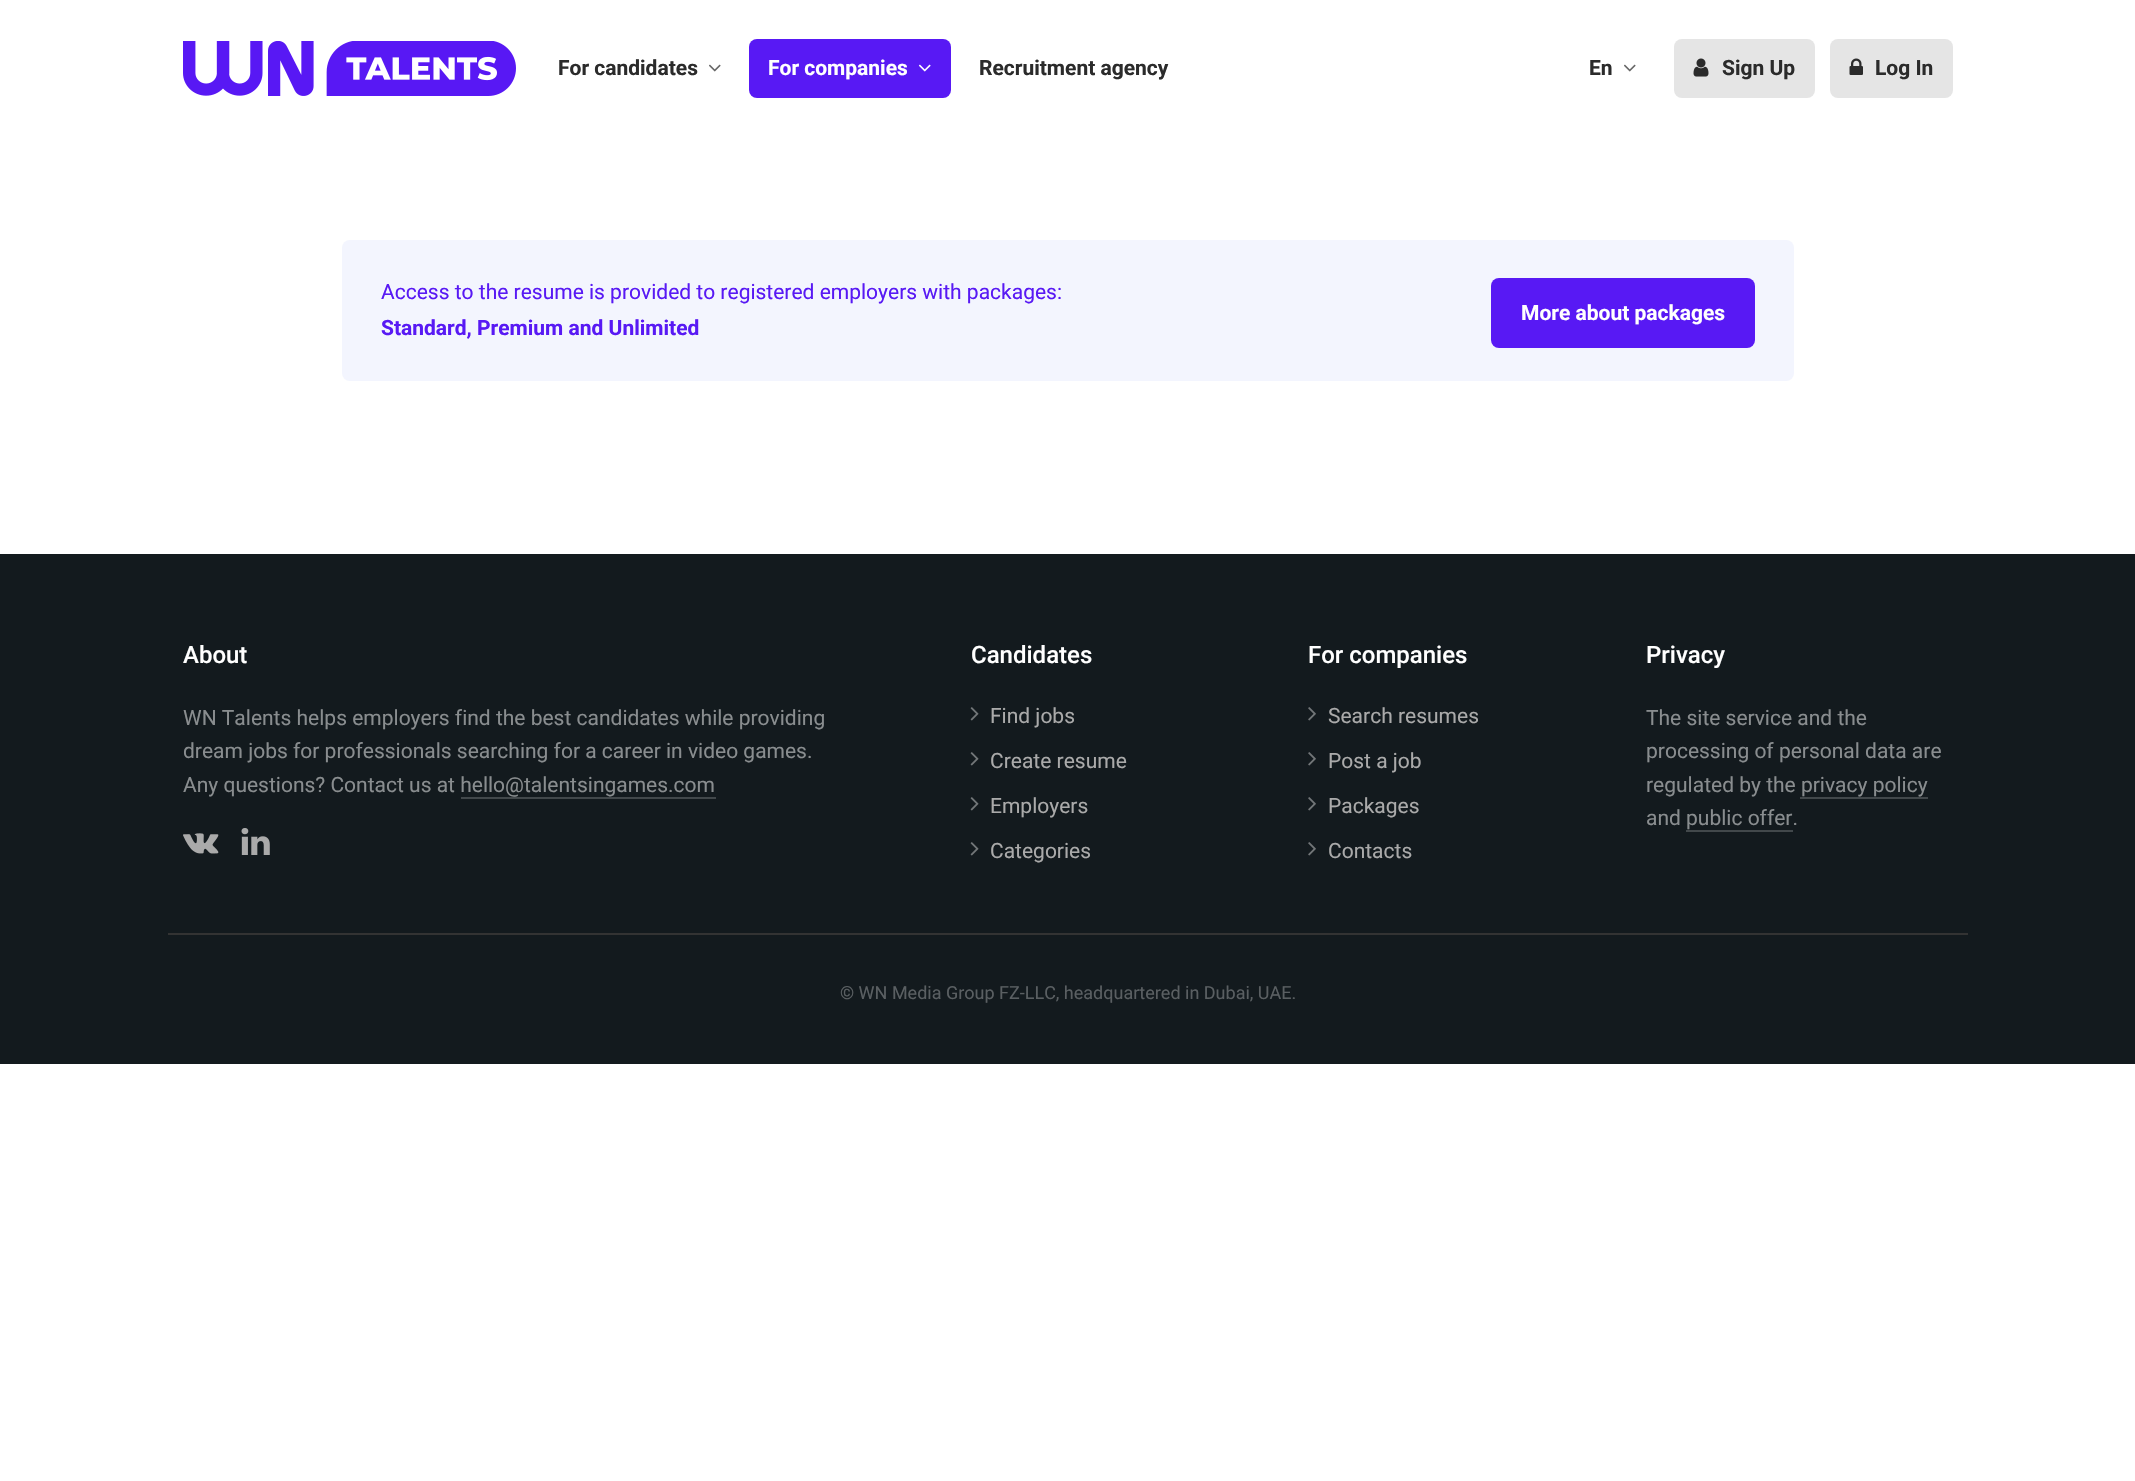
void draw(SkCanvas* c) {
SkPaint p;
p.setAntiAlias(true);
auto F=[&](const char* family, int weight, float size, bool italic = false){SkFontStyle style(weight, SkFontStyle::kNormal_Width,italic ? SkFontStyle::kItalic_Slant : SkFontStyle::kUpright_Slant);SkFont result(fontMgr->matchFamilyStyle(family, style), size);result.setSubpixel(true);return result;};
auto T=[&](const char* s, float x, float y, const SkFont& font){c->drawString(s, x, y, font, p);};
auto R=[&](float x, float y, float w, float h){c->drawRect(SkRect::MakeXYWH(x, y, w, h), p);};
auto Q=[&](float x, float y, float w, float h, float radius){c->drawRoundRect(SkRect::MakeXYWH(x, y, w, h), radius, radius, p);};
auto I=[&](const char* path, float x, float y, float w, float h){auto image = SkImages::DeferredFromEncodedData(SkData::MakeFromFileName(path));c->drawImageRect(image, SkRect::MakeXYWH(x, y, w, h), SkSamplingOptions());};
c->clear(0xffffffff);
I("1.png",183,41,333,55);
auto f1 = F("Roboto",700,21);
p.setColor(0xff2b2b2b);
T("For candidates",558,75,f1);
I("2.png",709,64,12,8);
p.setColor(0xff5819f4);
Q(749,39,202,59,8);
p.setColor(0xffffffff);
T("For companies",768,75,f1);
I("3.png",918,64,13,8);
p.setColor(0xff2b2b2b);
T("Recruitment agency",979,75,f1);
T("En",1589,75,f1);
I("2.png",1624,64,12,8);
p.setColor(0xffe5e5e5);
Q(1674,39,141,59,8);
I("4.png",1693,58,16,19);
p.setColor(0xff2b2b2b);
T("Sign Up",1722,75,f1);
p.setColor(0xffe5e5e5);
Q(1830,39,123,59,8);
I("5.png",1849,58,14,17);
p.setColor(0xff2b2b2b);
T("Log In",1875,75,f1);
p.setColor(0xfff3f5fe);
Q(342,240,1452,141,8);
auto f2 = F("Roboto",400,21);
p.setColor(0xff5819f4);
T("Access to the resume is provided to registered employers with packages:",381,299,f2);
T("Standard, Premium and Unlimited",381,335,f1);
Q(1491,278,264,70,8);
p.setColor(0xffffffff);
T("More about packages",1521,320,f1);
p.setColor(0xff131a1e);
R(0,554,2135,510);
auto f3 = F("Roboto",500,24);
p.setColor(0xffffffff);
T("About",183,663,f3);
p.setColor(0xff898d8f);
T("WN Talents helps employers find the best candidates while providing",183,725,f2);
T("dream jobs for professionals searching for a career in video games.",183,758,f2);
T("Any questions? Contact us at hello@talentsingames.com",183,792,f2);
p.setColor(0xff42484b);
R(461,797,255,2);
I("6.png",183,833,36,21);
I("7.png",241,828,29,27);
p.setColor(0xffffffff);
T("Candidates",971,663,f3);
I("8.png",970,707,9,14);
p.setColor(0xffaaaaaa);
T("Find jobs",990,723,f2);
I("8.png",970,752,9,14);
T("Create resume",990,768,f2);
I("8.png",970,797,9,14);
T("Employers",990,813,f2);
I("8.png",970,842,9,14);
T("Categories",990,858,f2);
p.setColor(0xffffffff);
T("For companies",1308,663,f3);
I("9.png",1308,707,8,14);
p.setColor(0xffaaaaaa);
T("Search resumes",1328,723,f2);
I("9.png",1308,752,8,14);
T("Post a job",1328,768,f2);
I("9.png",1308,797,8,14);
T("Packages",1328,813,f2);
I("9.png",1308,842,8,14);
T("Contacts",1328,858,f2);
p.setColor(0xffffffff);
T("Privacy",1646,663,f3);
p.setColor(0xff898d8f);
T("The site service and the",1646,725,f2);
T("processing of personal data are",1646,758,f2);
T("regulated by the privacy policy",1646,792,f2);
p.setColor(0xff42484b);
R(1800,797,128,2);
p.setColor(0xff898d8f);
T("and public offer.",1646,825,f2);
p.setColor(0xff42484b);
R(1686,830,107,2);
p.setColor(0xff333333);
R(168,933,1800,2);
auto f4 = F("Roboto",400,18);
p.setColor(0xff5a5f62);
T("© WN Media Group FZ-LLC, headquartered in Dubai, UAE.",840,999,f4);
}
